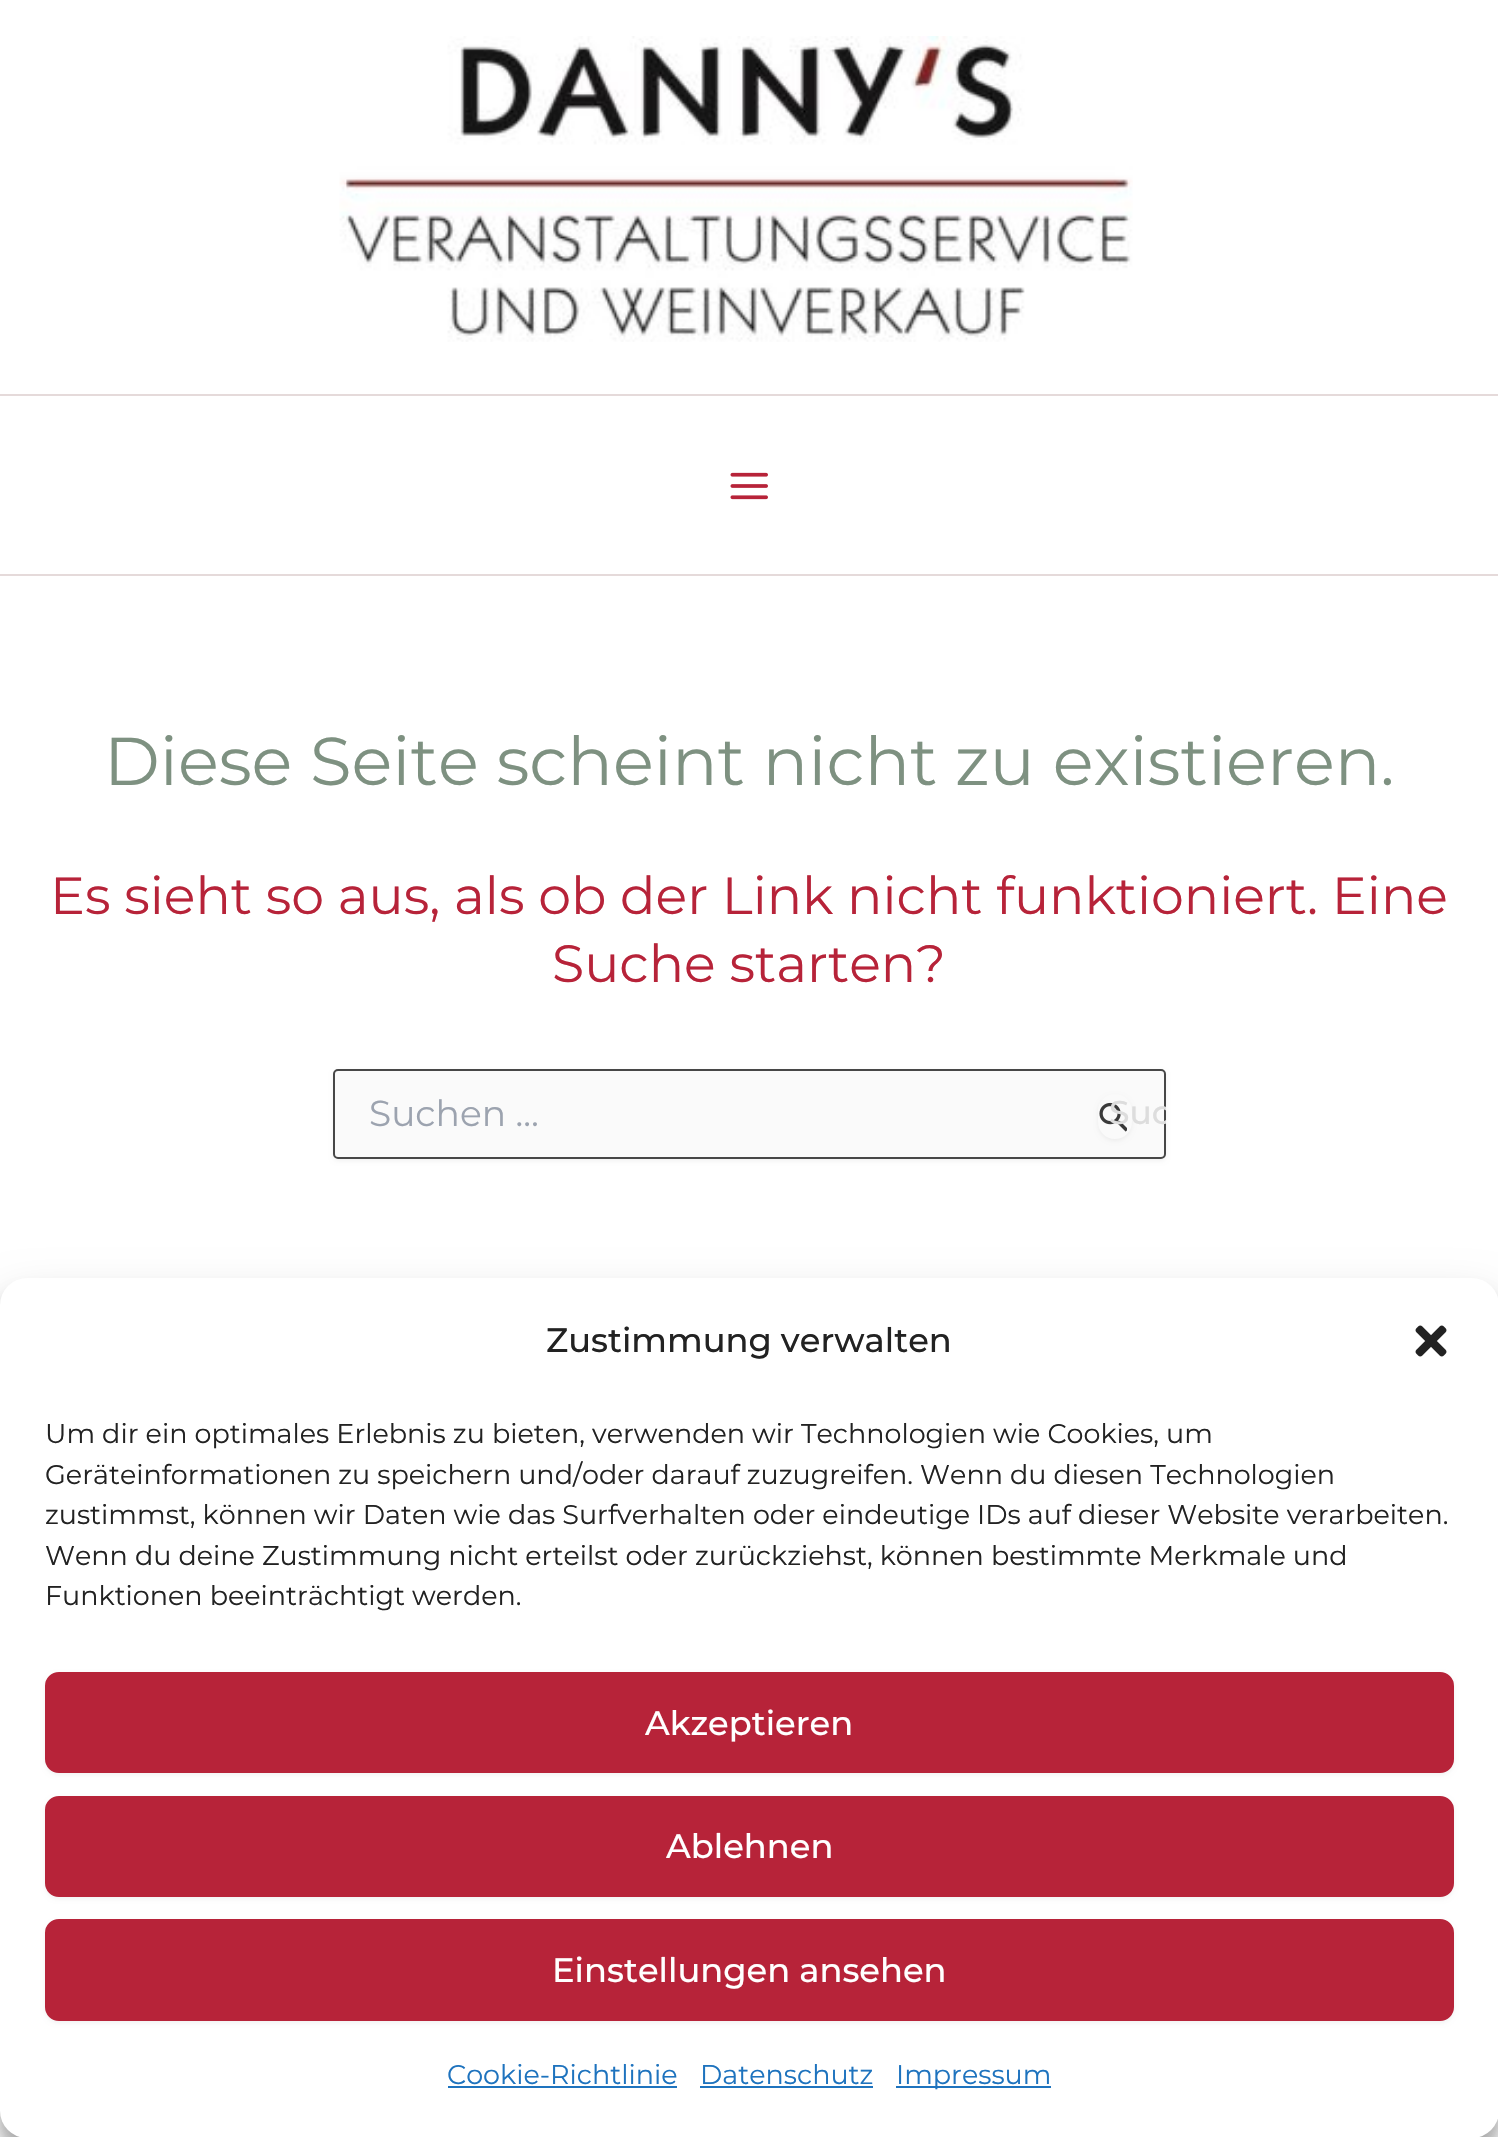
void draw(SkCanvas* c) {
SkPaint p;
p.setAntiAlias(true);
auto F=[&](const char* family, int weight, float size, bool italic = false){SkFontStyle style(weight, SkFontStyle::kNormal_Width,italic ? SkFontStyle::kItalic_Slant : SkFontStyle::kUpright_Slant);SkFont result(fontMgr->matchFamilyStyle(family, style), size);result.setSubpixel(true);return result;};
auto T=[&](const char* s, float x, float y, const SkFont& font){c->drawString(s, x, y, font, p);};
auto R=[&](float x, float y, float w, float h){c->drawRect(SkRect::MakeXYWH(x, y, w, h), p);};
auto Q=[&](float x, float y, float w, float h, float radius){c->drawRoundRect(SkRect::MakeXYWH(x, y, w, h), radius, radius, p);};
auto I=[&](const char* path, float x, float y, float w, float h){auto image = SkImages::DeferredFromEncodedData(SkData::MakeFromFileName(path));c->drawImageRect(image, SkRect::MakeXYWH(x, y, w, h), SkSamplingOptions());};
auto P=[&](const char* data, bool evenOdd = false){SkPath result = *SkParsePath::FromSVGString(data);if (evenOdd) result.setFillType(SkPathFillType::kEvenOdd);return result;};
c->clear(0xffffffff);
p.setColor(0xffe5dada);
R(0,394,1498,2);
I("1.png",339,36,794,306);
R(0,574,1498,2);
I("2.png",730,472,38,28);
auto f1 = F("Montserrat",400,67.5);
p.setColor(0xff7e9181);
T("Diese Seite scheint nicht zu existieren.",104,785,f1);
auto f2 = F("Montserrat",400,52.3);
p.setColor(0xffb72339);
T("Es sieht so aus, als ob der Link nicht funktioniert. Eine",50,914,f2);
T("Suche starten?",552,982,f2);
p.setColor(0x0d000000);
p.setMaskFilter(SkMaskFilter::MakeBlur(kNormal_SkBlurStyle, 2));
c->drawRoundRect(SkRect::MakeXYWH(333,1071,833,90),5,5,p);
p.setMaskFilter(nullptr);
p.setColor(0xfffafafa);
c->drawRoundRect(SkRect::MakeXYWH(334,1070,831,88),4,4,p);
p.setStroke(true);
p.setStrokeWidth(2);
p.setColor(0xff474747);
c->drawRoundRect(SkRect::MakeXYWH(334,1070,831,88),4,4,p);
auto f3 = F("Montserrat",400,36);
p.setStroke(false);
p.setColor(0xff9ca3af);
T("Suchen …",369,1126,f3);
c->save();
c->clipPath(P("M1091 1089h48v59h-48zm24 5c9.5 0 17 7.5 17 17v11c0 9.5-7.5 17-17 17c-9.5 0-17-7.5-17-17v-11c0-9.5 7.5-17 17-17z",true),true);
p.setColor(0x0d000000);
p.setMaskFilter(SkMaskFilter::MakeBlur(kNormal_SkBlurStyle, 2));
c->drawRoundRect(SkRect::MakeXYWH(1098,1096,34,45),17,17,p);
p.setMaskFilter(nullptr);
c->restore();
I("3.png",1099,1102,28,30);
c->save();
c->clipPath(P("M1069 1069h92c3 0 5 2 5 5v80c0 3-2 5-5 5h-92c-3 0-5-2-5-5v-80c0-3 2-5 5-5z"),true);
auto f4 = F("Montserrat",500,33);
p.setColor(0xffdddddd);
T("Suc",1109,1124,f4);
c->restore();
p.setColor(0x3b000000);
p.setMaskFilter(SkMaskFilter::MakeBlur(kNormal_SkBlurStyle, 7));
c->drawRoundRect(SkRect::MakeXYWH(0,1292,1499,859),27,27,p);
p.setMaskFilter(nullptr);
p.setColor(0x30000000);
p.setMaskFilter(SkMaskFilter::MakeBlur(kNormal_SkBlurStyle, 22.5));
c->drawRoundRect(SkRect::MakeXYWH(0,1301,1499,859),27,27,p);
p.setMaskFilter(nullptr);
p.setColor(0xffffffff);
Q(0,1278,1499,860,27);
auto f5 = F("Montserrat",500,33.75);
p.setColor(0xff222222);
T("Zustimmung verwalten",546,1352,f5);
I("4.png",1415,1325,32,32);
auto f6 = F("Montserrat",400,27);
T("Um dir ein optimales Erlebnis zu bieten, verwenden wir Technologien wie Cookies, um",45,1443,f6);
T("Geräteinformationen zu speichern und/oder darauf zuzugreifen. Wenn du diesen Technologien",45,1484,f6);
T("zustimmst, können wir Daten wie das Surfverhalten oder eindeutige IDs auf dieser Website verarbeiten.",45,1524,f6);
T("Wenn du deine Zustimmung nicht erteilst oder zurückziehst, können bestimmte Merkmale und",45,1565,f6);
T("Funktionen beeinträchtigt werden.",45,1605,f6);
p.setColor(0x0d000000);
p.setMaskFilter(SkMaskFilter::MakeBlur(kNormal_SkBlurStyle, 2));
c->drawRoundRect(SkRect::MakeXYWH(45,1674,1409,101),14,14,p);
p.setMaskFilter(nullptr);
p.setColor(0xffb72339);
c->drawRoundRect(SkRect::MakeXYWH(46,1673,1407,99),13,13,p);
p.setStroke(true);
c->drawRoundRect(SkRect::MakeXYWH(46,1673,1407,99),13,13,p);
p.setStroke(false);
p.setColor(0xffffffff);
T("Akzeptieren",645,1735,f5);
p.setColor(0x0d000000);
p.setMaskFilter(SkMaskFilter::MakeBlur(kNormal_SkBlurStyle, 2));
c->drawRoundRect(SkRect::MakeXYWH(45,1798,1409,101),14,14,p);
p.setMaskFilter(nullptr);
p.setColor(0xffb72339);
c->drawRoundRect(SkRect::MakeXYWH(46,1797,1407,99),13,13,p);
p.setStroke(true);
c->drawRoundRect(SkRect::MakeXYWH(46,1797,1407,99),13,13,p);
p.setStroke(false);
p.setColor(0xffffffff);
T("Ablehnen",666,1858,f5);
p.setColor(0x0d000000);
p.setMaskFilter(SkMaskFilter::MakeBlur(kNormal_SkBlurStyle, 2));
c->drawRoundRect(SkRect::MakeXYWH(45,1922,1409,101),14,14,p);
p.setMaskFilter(nullptr);
p.setColor(0xffb72339);
c->drawRoundRect(SkRect::MakeXYWH(46,1920,1407,100),13,13,p);
p.setStroke(true);
c->drawRoundRect(SkRect::MakeXYWH(46,1920,1407,100),13,13,p);
p.setStroke(false);
p.setColor(0xffffffff);
T("Einstellungen ansehen",552,1982,f5);
p.setColor(0xff1e73be);
T("Cookie-Richtlinie",447,2084,f6);
R(448,2086,229,2);
T("Datenschutz",700,2084,f6);
R(700,2086,173,2);
R(896,2086,155,2);
T("Impressum",896,2084,f6);
}
